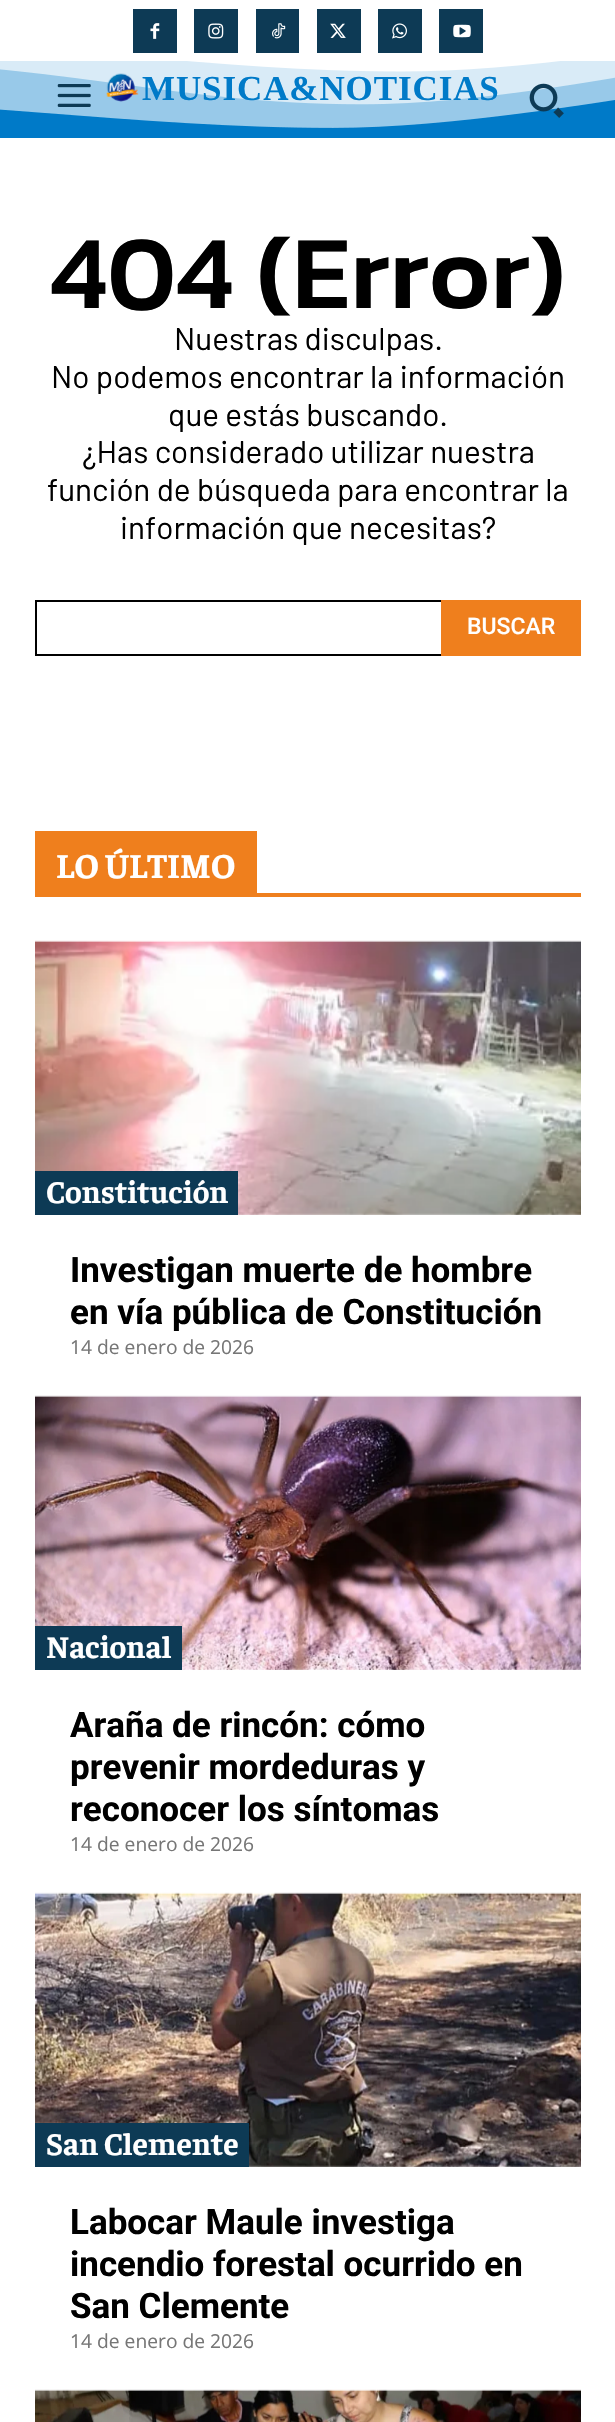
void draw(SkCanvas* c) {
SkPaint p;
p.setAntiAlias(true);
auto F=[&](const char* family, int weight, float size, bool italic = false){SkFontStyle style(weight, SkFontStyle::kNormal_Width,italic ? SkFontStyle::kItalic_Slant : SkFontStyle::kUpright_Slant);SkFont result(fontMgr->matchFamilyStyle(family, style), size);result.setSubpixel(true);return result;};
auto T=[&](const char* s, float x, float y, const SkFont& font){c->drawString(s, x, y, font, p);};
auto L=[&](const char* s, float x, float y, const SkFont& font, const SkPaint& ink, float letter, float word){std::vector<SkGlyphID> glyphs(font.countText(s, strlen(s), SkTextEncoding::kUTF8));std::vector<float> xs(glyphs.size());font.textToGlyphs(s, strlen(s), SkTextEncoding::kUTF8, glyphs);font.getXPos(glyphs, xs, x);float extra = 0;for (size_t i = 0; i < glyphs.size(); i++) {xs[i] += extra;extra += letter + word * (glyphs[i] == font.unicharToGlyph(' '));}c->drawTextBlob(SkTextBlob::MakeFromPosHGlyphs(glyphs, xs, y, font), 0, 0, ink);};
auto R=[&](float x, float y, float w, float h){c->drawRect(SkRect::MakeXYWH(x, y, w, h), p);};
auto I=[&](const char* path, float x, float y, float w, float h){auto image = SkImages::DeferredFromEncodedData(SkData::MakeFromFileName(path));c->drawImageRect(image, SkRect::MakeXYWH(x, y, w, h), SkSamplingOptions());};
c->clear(0xffffffff);
p.setColor(0xff0d3a55);
R(133,9,44,44);
I("1.png",150,23,10,16);
R(194,9,44,44);
I("2.png",208,23,16,16);
R(256,9,43,44);
I("3.png",272,23,14,16);
R(317,9,44,44);
I("4.png",330,23,16,15);
R(378,9,44,44);
I("5.png",392,23,15,16);
R(439,9,44,44);
I("6.png",453,24,18,14);
I("7.png",0,61,615,77);
I("8.png",57,84,34,23);
I("9.png",106,73,33,29);
auto f1 = F("Liberation Serif",700,35);
p.setColor(0xff007ac8);
L("MUSICA&NOTICIAS",142,100,f1,p,.9,0);
I("10.png",529,83,35,35);
auto f2 = F("Kanit",500,105);
p.setColor(0xff000000);
T("404 (Error)",50,308,f2);
auto f3 = F("Barlow",400,31.5);
T("Nuestras disculpas.",174,350,f3);
T("No podemos encontrar la información",51,388,f3);
T("que estás buscando.",168,426,f3);
T("¿Has considerado utilizar nuestra",82,463,f3);
T("función de búsqueda para encontrar la",47,501,f3);
T("información que necesitas?",120,539,f3);
p.setStroke(true);
p.setStrokeWidth(2);
c->drawRect(SkRect::MakeXYWH(36,601,544,54),p);
p.setStroke(false);
p.setColor(0xffef7f1d);
R(441,600,140,56);
auto f4 = F("Roboto",500,23);
p.setColor(0xffffffff);
T("BUSCAR",467,634,f4);
p.setColor(0xffef7f1d);
R(35,893,546,4);
R(35,831,222,62);
auto f5 = F("Faustina",700,35);
p.setColor(0xffffffff);
T("LO ÚLTIMO",56,878,f5);
I("11.png",35,940,546,275);
p.setColor(0xff0d3a55);
R(35,1171,203,44);
auto f6 = F("Faustina",700,31.5);
p.setColor(0xffffffff);
T("Constitución",46,1203,f6);
auto f7 = F("Roboto",700,35);
p.setColor(0xff000000);
T("Investigan muerte de hombre",70,1282,f7);
T("en vía pública de Constitución",70,1324,f7);
auto f8 = F("Open Sans",400,19.25);
p.setColor(0xff767676);
T("14 de enero de 2026",70,1354,f8);
I("12.png",35,1395,546,275);
p.setColor(0xff0d3a55);
R(35,1626,147,44);
p.setColor(0xffffffff);
T("Nacional",46,1658,f6);
p.setColor(0xff000000);
T("Araña de rincón: cómo",70,1737,f7);
T("prevenir mordeduras y",70,1779,f7);
T("reconocer los síntomas",70,1821,f7);
p.setColor(0xff767676);
T("14 de enero de 2026",70,1851,f8);
I("13.png",35,1892,546,275);
p.setColor(0xff0d3a55);
R(35,2123,214,44);
p.setColor(0xffffffff);
T("San Clemente",46,2155,f6);
p.setColor(0xff000000);
T("Labocar Maule investiga",70,2234,f7);
T("incendio forestal ocurrido en",70,2276,f7);
T("San Clemente",70,2318,f7);
p.setColor(0xff767676);
T("14 de enero de 2026",70,2348,f8);
I("14.png",35,2389,546,33);
}
